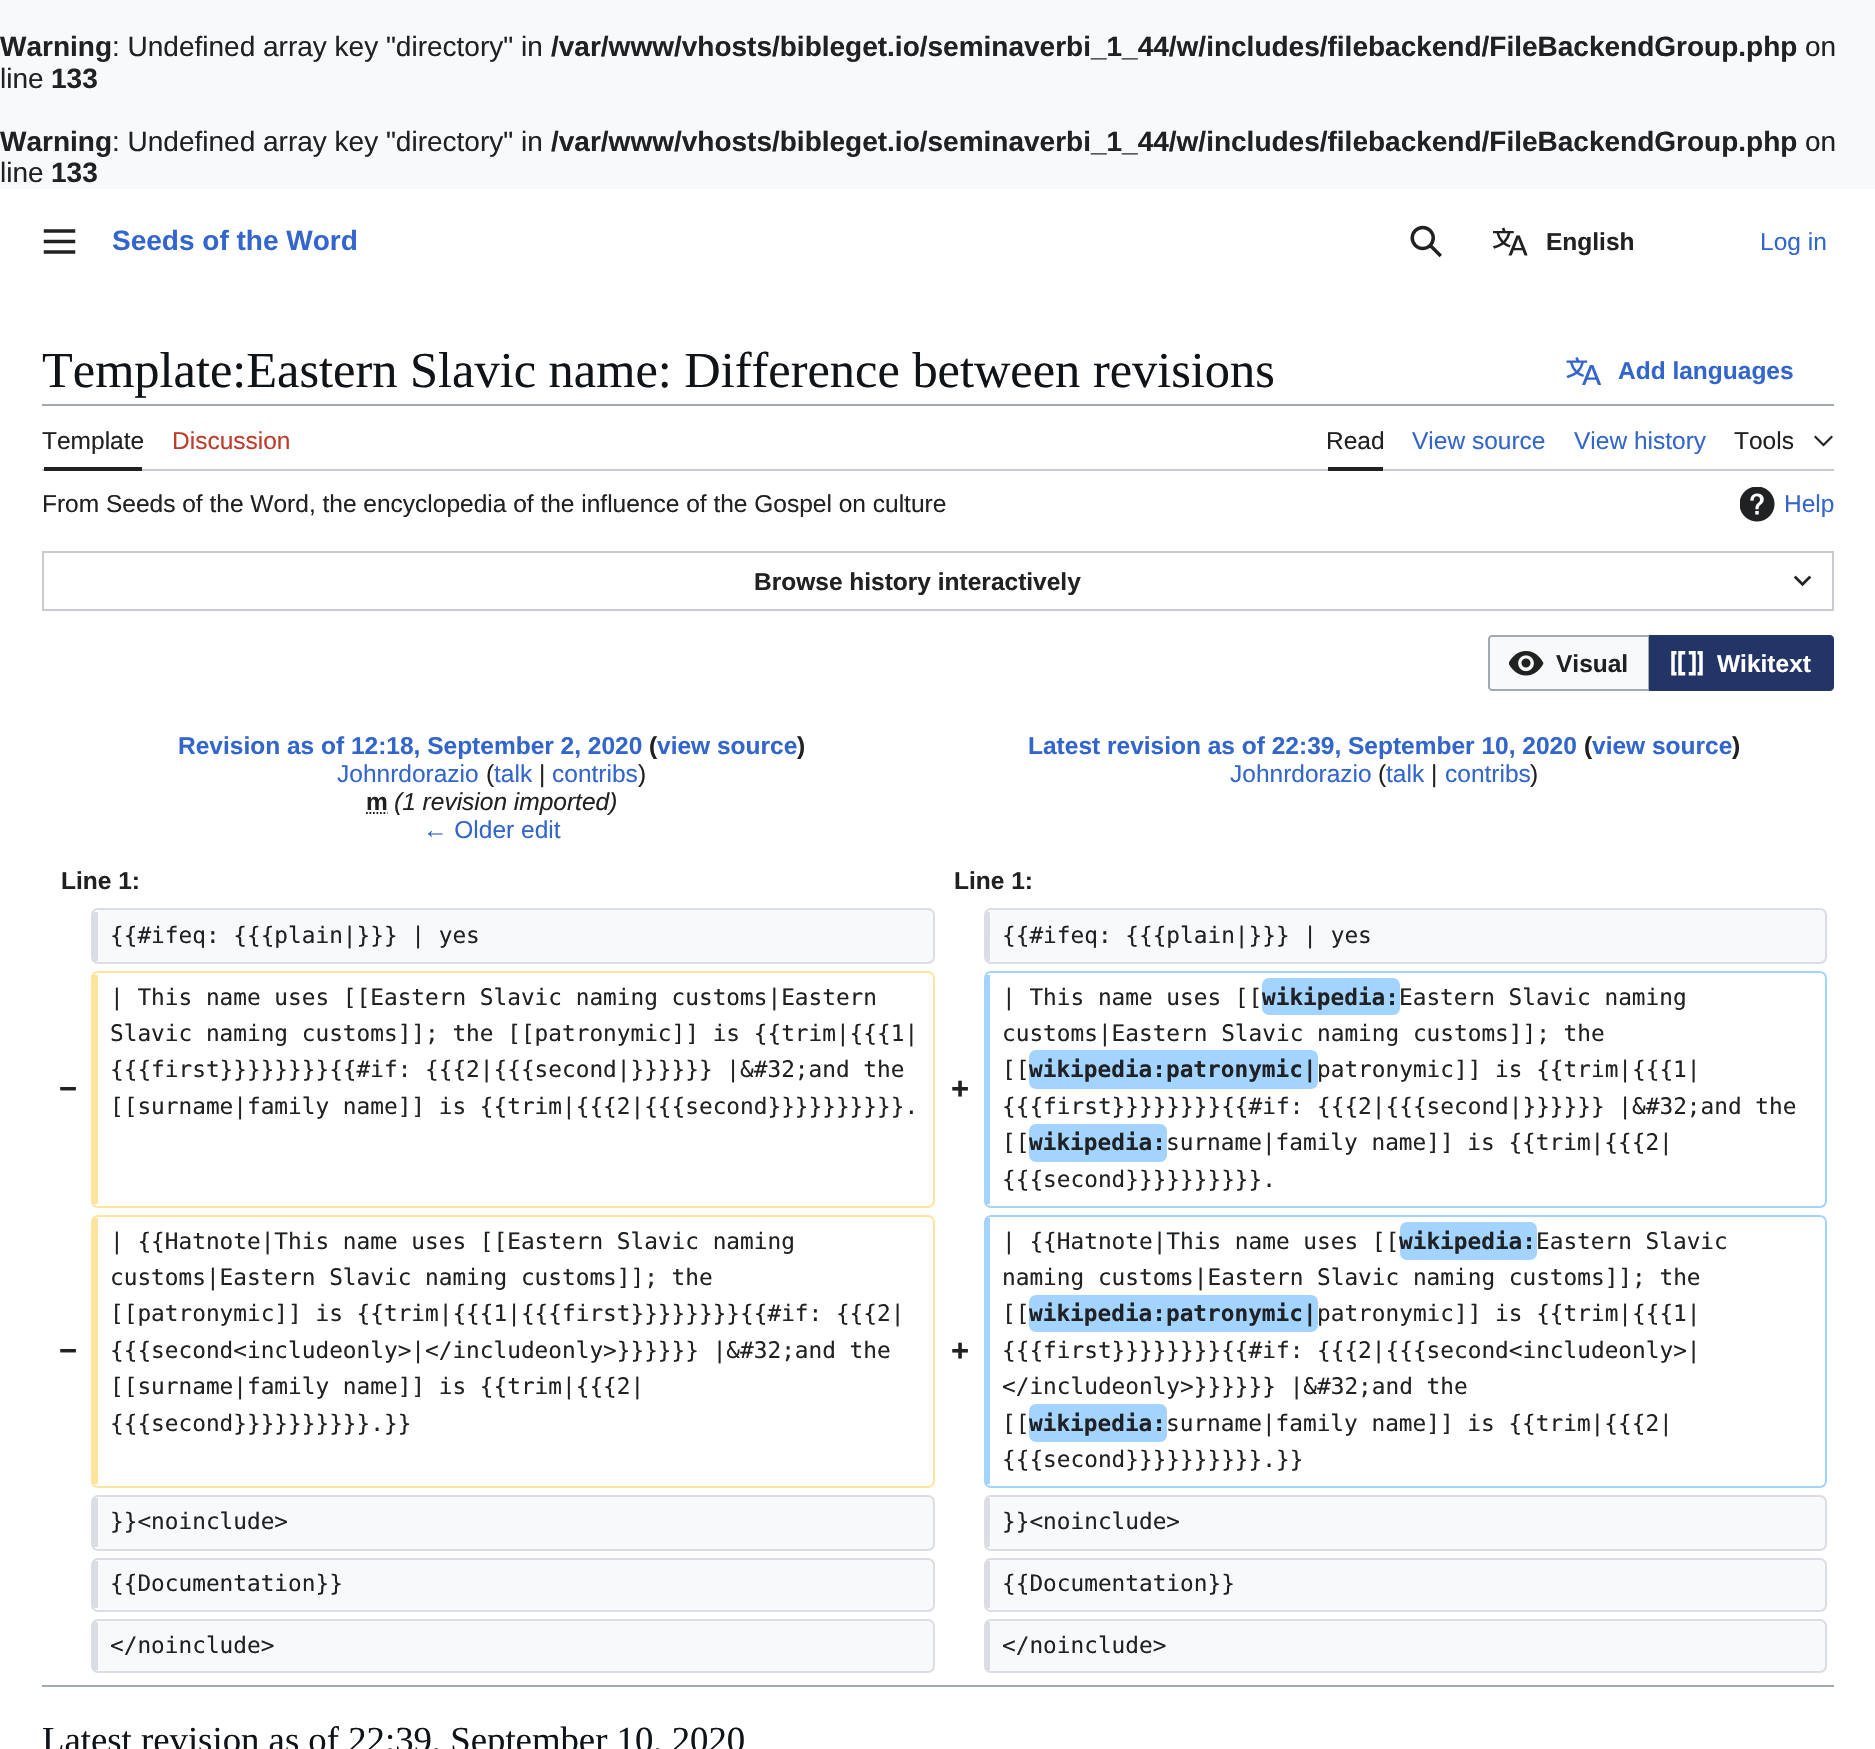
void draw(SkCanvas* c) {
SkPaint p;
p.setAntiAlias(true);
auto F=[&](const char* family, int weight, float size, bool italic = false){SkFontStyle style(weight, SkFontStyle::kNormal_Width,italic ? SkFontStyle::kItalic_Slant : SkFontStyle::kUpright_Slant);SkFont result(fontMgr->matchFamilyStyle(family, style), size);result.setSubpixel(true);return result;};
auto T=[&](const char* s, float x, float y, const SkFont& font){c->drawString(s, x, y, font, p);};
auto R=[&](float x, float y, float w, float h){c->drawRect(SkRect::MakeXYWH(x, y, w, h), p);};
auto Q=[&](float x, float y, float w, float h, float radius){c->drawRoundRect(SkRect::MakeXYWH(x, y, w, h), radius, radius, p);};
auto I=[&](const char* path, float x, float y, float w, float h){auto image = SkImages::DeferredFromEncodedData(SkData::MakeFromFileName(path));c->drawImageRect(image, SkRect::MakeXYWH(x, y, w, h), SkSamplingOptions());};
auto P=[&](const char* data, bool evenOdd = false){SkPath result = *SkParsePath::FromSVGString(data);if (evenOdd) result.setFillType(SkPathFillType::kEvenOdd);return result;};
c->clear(0xfff8f9fa);
auto f1 = F("Liberation Sans",700,28);
p.setColor(0xff202122);
T("Warning",0,56,f1);
auto f2 = F("Liberation Sans",400,28);
T(": Undefined array key \"directory\" in",112,56,f2);
T("/var/www/vhosts/bibleget.io/seminaverbi_1_44/w/includes/filebackend/FileBackendGroup.php",551,56,f1);
T("on",1805,56,f2);
T("line",0,88,f2);
T("133",51,88,f1);
T("Warning",0,151,f1);
T(": Undefined array key \"directory\" in",112,151,f2);
T("/var/www/vhosts/bibleget.io/seminaverbi_1_44/w/includes/filebackend/FileBackendGroup.php",551,151,f1);
T("on",1805,151,f2);
T("line",0,182,f2);
T("133",51,182,f1);
p.setColor(0xffffffff);
R(0,189,1875,1560);
I("1.png",43,229,33,25);
p.setColor(0xff3366cc);
T("Seeds of the Word",112,250,f1);
I("2.png",1410,225,32,33);
I("3.png",1493,227,35,29);
auto f3 = F("Liberation Sans",700,24.5);
p.setColor(0xff202122);
T("English",1546,250,f3);
auto f4 = F("Liberation Sans",400,24.5);
p.setColor(0xff3366cc);
T("Log in",1760,250,f4);
auto f5 = F("Liberation Serif",400,50.4);
p.setColor(0xff101418);
T("Template:Eastern Slavic name: Difference between revisions",42,387,f5);
I("4.png",1566,357,35,28);
p.setColor(0xff3366cc);
T("Add languages",1618,379,f3);
p.setColor(0xffa2a9b1);
R(42,404,1792,2);
p.setColor(0xffc8ccd1);
R(42,469,1792,2);
p.setColor(0xff202122);
R(44,467,98,4);
T("Template",42,449,f4);
p.setColor(0xffbf3c2c);
T("Discussion",172,449,f4);
p.setColor(0xff202122);
R(1328,467,55,4);
T("Read",1326,449,f4);
p.setColor(0xff3366cc);
T("View source",1412,449,f4);
T("View history",1574,449,f4);
p.setColor(0xff202122);
T("Tools",1734,449,f4);
c->drawPath(P("M1831.5 435.5l-8 8l-8-8l-1.5 1.5l9.5 9.5l9.5-9.5z"),p);
T("From Seeds of the Word, the encyclopedia of the influence of the Gospel on culture",42,512,f4);
I("5.png",1740,487,35,35);
p.setColor(0xff3366cc);
T("Help",1784,512,f4);
p.setStroke(true);
p.setStrokeWidth(2);
p.setColor(0xffc8ccd1);
c->drawRect(SkRect::MakeXYWH(43,552,1790,58),p);
p.setStroke(false);
p.setColor(0xff202122);
T("Browse history interactively",754,590,f3);
I("6.png",1793,575,19,12);
p.setColor(0xfff8f9fa);
c->drawPath(P("M1492 636h157v54h-157c-1.5 0-3-1.5-3-3v-48c0-1.5 1.5-3 3-3z"),p);
p.setStroke(true);
p.setColor(0xffa2a9b1);
c->drawPath(P("M1492 636h157v54h-157c-1.5 0-3-1.5-3-3v-48c0-1.5 1.5-3 3-3z"),p);
I("7.png",1509,651,35,25);
p.setStroke(false);
p.setColor(0xff202122);
T("Visual",1556,672,f3);
p.setColor(0xff233566);
c->drawPath(P("M1650 636h180c1.5 0 3 1.5 3 3v48c0 1.5-1.5 3-3 3h-180z"),p);
p.setStroke(true);
c->drawPath(P("M1650 636h180c1.5 0 3 1.5 3 3v48c0 1.5-1.5 3-3 3h-180z"),p);
I("8.png",1671,651,32,25);
p.setStroke(false);
p.setColor(0xffffffff);
T("Wikitext",1717,672,f3);
p.setColor(0xff3366cc);
T("Revision as of 12:18, September 2, 2020",178,754,f3);
p.setColor(0xff202122);
T("(",649,754,f3);
p.setColor(0xff3366cc);
T("view source",657,754,f3);
p.setColor(0xff202122);
T(")",797,754,f3);
p.setColor(0xff3366cc);
T("Johnrdorazio",337,782,f4);
p.setColor(0xff202122);
T("(",486,782,f4);
p.setColor(0xff3366cc);
T("talk",494,782,f4);
p.setColor(0xff202122);
T("|",539,782,f4);
p.setColor(0xff3366cc);
T("contribs",552,782,f4);
p.setColor(0xff202122);
T(")",638,782,f4);
T("m",366,810,f3);
p.setStroke(true);
p.setStrokeWidth(1.8);
p.setPathEffect(SkDashPathEffect::Make({{1.75f,1.75f}}, 0));
c->drawPath(P("M366 813h21.5"),p);
p.setPathEffect(nullptr);
auto f6 = F("Liberation Sans",400,24.5,true);
p.setStroke(false);
T("(1 revision imported)",394,810,f6);
p.setColor(0xff3366cc);
T("← Older edit",423,838,f4);
T("Latest revision as of 22:39, September 10, 2020",1028,754,f3);
p.setColor(0xff202122);
T("(",1584,754,f3);
p.setColor(0xff3366cc);
T("view source",1592,754,f3);
p.setColor(0xff202122);
T(")",1732,754,f3);
p.setColor(0xff3366cc);
T("Johnrdorazio",1230,782,f4);
p.setColor(0xff202122);
T("(",1378,782,f4);
p.setColor(0xff3366cc);
T("talk",1386,782,f4);
p.setColor(0xff202122);
T("|",1431,782,f4);
p.setColor(0xff3366cc);
T("contribs",1445,782,f4);
p.setColor(0xff202122);
T(")",1530,782,f4);
T("Line 1:",61,889,f3);
T("Line 1:",954,889,f3);
p.setColor(0xfff8f9fa);
c->drawPath(P("M99 910h828c3 0 5 2 6 5v35c0 4 1 12-6 12h-829v-39z"),p);
p.setStroke(true);
p.setStrokeWidth(2);
p.setColor(0xffdadde3);
c->drawRoundRect(SkRect::MakeXYWH(92,909,842,54),6,6,p);
p.setStroke(false);
R(93,912,5,49);
auto f7 = F("DejaVu Sans Mono",400,22.75);
p.setColor(0xff202122);
T("{{#ifeq: {{{plain|}}} | yes",110,943,f7);
p.setColor(0xfff8f9fa);
c->drawPath(P("M991 910h828c3 0 6 2 6 5v35c0 4 1 12-6 12h-828l-1-39z"),p);
p.setStroke(true);
p.setColor(0xffdadde3);
c->drawRoundRect(SkRect::MakeXYWH(985,909,841,54),6,6,p);
p.setStroke(false);
R(986,912,4,49);
p.setColor(0xff202122);
T("{{#ifeq: {{{plain|}}} | yes",1002,943,f7);
auto f8 = F("Liberation Sans",700,31);
T("−",59,1099,f8);
p.setStroke(true);
p.setColor(0xffffe49c);
c->drawRoundRect(SkRect::MakeXYWH(92,972,842,235),6,6,p);
p.setStroke(false);
R(93,975,5,229);
p.setColor(0xff202122);
T("| This name uses [[Eastern Slavic naming customs|Eastern",110,1005,f7);
T("Slavic naming customs]]; the [[patronymic]] is {{trim|{{{1|",110,1041,f7);
T("{{{first}}}}}}}}{{#if: {{{2|{{{second|}}}}}} |&#32;and the",110,1077,f7);
T("[[surname|family name]] is {{trim|{{{2|{{{second}}}}}}}}}}.",110,1114,f7);
T("+",951,1099,f8);
p.setStroke(true);
p.setColor(0xffa3d3ff);
c->drawRoundRect(SkRect::MakeXYWH(985,972,841,235),6,6,p);
p.setStroke(false);
R(986,975,4,229);
p.setColor(0xff202122);
T("| This name uses [[",1002,1005,f7);
p.setColor(0xffa3d3ff);
Q(1262,978,138,37,7);
auto f9 = F("DejaVu Sans Mono",700,22.75);
p.setColor(0xff202122);
T("wikipedia:",1262,1005,f9);
T("Eastern Slavic naming",1399,1005,f7);
T("customs|Eastern Slavic naming customs]]; the",1002,1041,f7);
T("[[",1002,1077,f7);
p.setColor(0xffa3d3ff);
Q(1029,1050,289,39,7);
p.setColor(0xff202122);
T("wikipedia:patronymic|",1029,1077,f9);
T("patronymic]] is {{trim|{{{1|",1317,1077,f7);
T("{{{first}}}}}}}}{{#if: {{{2|{{{second|}}}}}} |&#32;and the",1002,1114,f7);
T("[[",1002,1150,f7);
p.setColor(0xffa3d3ff);
Q(1029,1124,138,38,7);
p.setColor(0xff202122);
T("wikipedia:",1029,1150,f9);
T("surname|family name]] is {{trim|{{{2|",1166,1150,f7);
T("{{{second}}}}}}}}}}.",1002,1187,f7);
T("−",59,1361,f8);
p.setStroke(true);
p.setColor(0xffffe49c);
c->drawRoundRect(SkRect::MakeXYWH(92,1216,842,271),6,6,p);
p.setStroke(false);
R(93,1218,5,266);
p.setColor(0xff202122);
T("| {{Hatnote|This name uses [[Eastern Slavic naming",110,1249,f7);
T("customs|Eastern Slavic naming customs]]; the",110,1285,f7);
T("[[patronymic]] is {{trim|{{{1|{{{first}}}}}}}}{{#if: {{{2|",110,1321,f7);
T("{{{second<includeonly>|</includeonly>}}}}}} |&#32;and the",110,1358,f7);
T("[[surname|family name]] is {{trim|{{{2|",110,1394,f7);
T("{{{second}}}}}}}}}}.}}",110,1431,f7);
T("+",951,1361,f8);
p.setStroke(true);
p.setColor(0xffa3d3ff);
c->drawRoundRect(SkRect::MakeXYWH(985,1216,841,271),6,6,p);
p.setStroke(false);
R(985,1218,5,266);
p.setColor(0xff202122);
T("| {{Hatnote|This name uses [[",1002,1249,f7);
p.setColor(0xffa3d3ff);
Q(1400,1222,137,38,7);
p.setColor(0xff202122);
T("wikipedia:",1399,1249,f9);
T("Eastern Slavic",1536,1249,f7);
T("naming customs|Eastern Slavic naming customs]]; the",1002,1285,f7);
T("[[",1002,1321,f7);
p.setColor(0xffa3d3ff);
Q(1029,1295,289,37,7);
p.setColor(0xff202122);
T("wikipedia:patronymic|",1029,1321,f9);
T("patronymic]] is {{trim|{{{1|",1317,1321,f7);
T("{{{first}}}}}}}}{{#if: {{{2|{{{second<includeonly>|",1002,1358,f7);
T("</includeonly>}}}}}} |&#32;and the",1002,1394,f7);
T("[[",1002,1431,f7);
p.setColor(0xffa3d3ff);
Q(1029,1404,138,38,7);
p.setColor(0xff202122);
T("wikipedia:",1029,1431,f9);
T("surname|family name]] is {{trim|{{{2|",1166,1431,f7);
T("{{{second}}}}}}}}}}.}}",1002,1467,f7);
p.setColor(0xfff8f9fa);
c->drawPath(P("M99 1496h828c3 0 5 2 6 5v35c0 5 1 13-6 13h-829v-40z"),p);
p.setStroke(true);
p.setColor(0xffdadde3);
c->drawRoundRect(SkRect::MakeXYWH(92,1496,842,54),6,6,p);
p.setStroke(false);
R(93,1498,5,49);
p.setColor(0xff202122);
T("}}<noinclude>",110,1529,f7);
p.setColor(0xfff8f9fa);
c->drawPath(P("M991 1496h828c3 0 6 2 6 5v35c0 5 1 13-6 13h-828l-1-40z"),p);
p.setStroke(true);
p.setColor(0xffdadde3);
c->drawRoundRect(SkRect::MakeXYWH(985,1496,841,54),6,6,p);
p.setStroke(false);
R(986,1498,4,49);
p.setColor(0xff202122);
T("}}<noinclude>",1002,1529,f7);
p.setColor(0xfff8f9fa);
c->drawPath(P("M99 1559h828c3 0 6 3 6 6v39c0 3-3 6-6 6h-828l-1-6v-39z"),p);
p.setStroke(true);
p.setColor(0xffdadde3);
c->drawRoundRect(SkRect::MakeXYWH(92,1559,842,52),6,6,p);
p.setStroke(false);
R(93,1561,5,47);
p.setColor(0xff202122);
T("{{Documentation}}",110,1591,f7);
p.setColor(0xfff8f9fa);
c->drawPath(P("M991 1559h828c4 0 6 3 6 6v39c0 3-2 6-6 6h-828l-1-6v-39z"),p);
p.setStroke(true);
p.setColor(0xffdadde3);
c->drawRoundRect(SkRect::MakeXYWH(985,1559,841,52),6,6,p);
p.setStroke(false);
R(986,1561,4,47);
p.setColor(0xff202122);
T("{{Documentation}}",1002,1591,f7);
p.setColor(0xfff8f9fa);
c->drawPath(P("M99 1620h828c3 0 6 3 6 6v39c0 4-3 6-6 6h-828l-1-6v-39z"),p);
p.setStroke(true);
p.setColor(0xffdadde3);
c->drawRoundRect(SkRect::MakeXYWH(92,1620,842,52),6,6,p);
p.setStroke(false);
R(93,1622,5,48);
p.setColor(0xff202122);
T("</noinclude>",110,1653,f7);
p.setColor(0xfff8f9fa);
c->drawPath(P("M991 1620h828c4 0 6 3 6 6v39c0 4-2 6-6 6h-828l-1-6v-39z"),p);
p.setStroke(true);
p.setColor(0xffdadde3);
c->drawRoundRect(SkRect::MakeXYWH(985,1620,841,52),6,6,p);
p.setStroke(false);
R(986,1622,4,48);
p.setColor(0xff202122);
T("</noinclude>",1002,1653,f7);
p.setColor(0xffa2a9b1);
R(42,1685,1792,2);
auto f10 = F("Liberation Serif",400,36.75);
p.setColor(0xff101418);
T("Latest revision as of 22:39, September 10, 2020",42,1752,f10);
}
